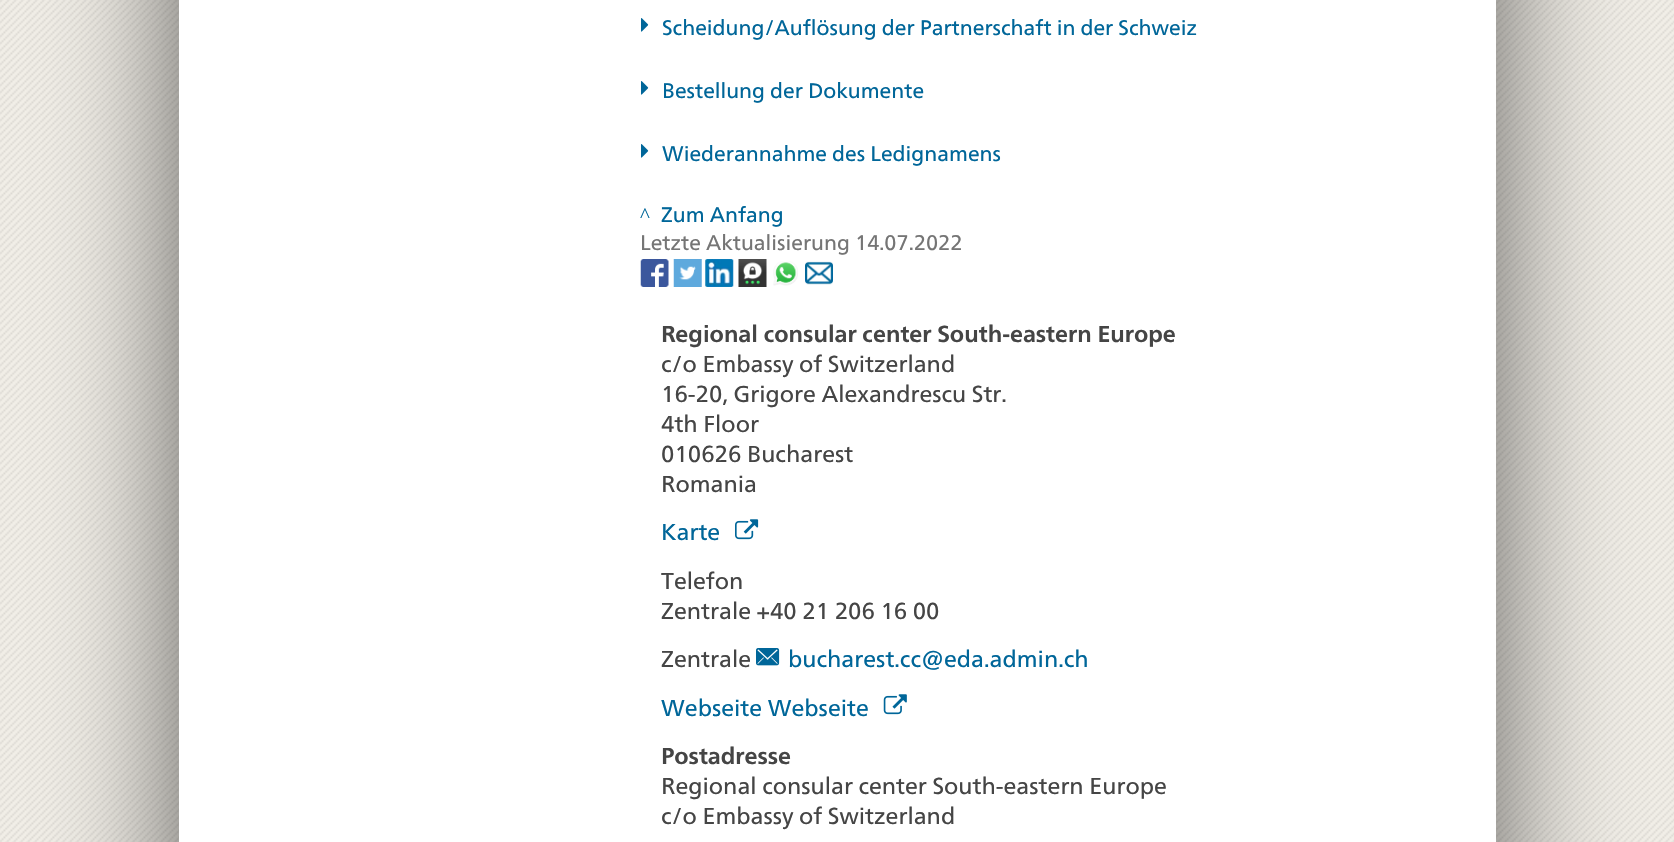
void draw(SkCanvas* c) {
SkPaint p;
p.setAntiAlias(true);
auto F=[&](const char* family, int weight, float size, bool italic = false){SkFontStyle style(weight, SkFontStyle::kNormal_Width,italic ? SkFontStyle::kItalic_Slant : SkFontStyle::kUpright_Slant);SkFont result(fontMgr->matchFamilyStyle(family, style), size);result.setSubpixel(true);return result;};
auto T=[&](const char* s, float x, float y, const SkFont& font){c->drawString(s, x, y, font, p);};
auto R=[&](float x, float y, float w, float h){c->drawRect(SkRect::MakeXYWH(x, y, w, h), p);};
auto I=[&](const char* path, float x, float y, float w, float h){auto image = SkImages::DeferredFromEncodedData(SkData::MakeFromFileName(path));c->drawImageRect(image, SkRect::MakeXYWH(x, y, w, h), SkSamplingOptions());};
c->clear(0xffffffff);
I("1.png",0,0,1674,842);
p.setColor(0x99000000);
p.setMaskFilter(SkMaskFilter::MakeBlur(kNormal_SkBlurStyle, 63));
c->drawRect(SkRect::MakeXYWH(179,-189,1317,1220),p);
p.setMaskFilter(nullptr);
p.setColor(0xffffffff);
R(179,0,1317,842);
I("2.png",641,18,8,14);
auto f1 = F("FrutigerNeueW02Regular",400,21);
p.setColor(0xff006699);
T("Scheidung/Auflösung der Partnerschaft in der Schweiz",662,35,f1);
I("2.png",641,81,8,14);
T("Bestellung der Dokumente",662,98,f1);
I("2.png",641,144,8,14);
T("Wiederannahme des Ledignamens",662,161,f1);
auto f2 = F("Liberation Serif",400,21);
T("^",640,222,f2);
T("Zum Anfang",661,222,f1);
p.setColor(0xff757575);
T("Letzte Aktualisierung 14.07.2022",640,250,f1);
I("3.png",640,259,29,28);
I("4.png",673,259,29,28);
I("5.png",705,259,29,28);
I("6.png",738,259,29,28);
I("7.png",773,261,25,25);
I("8.png",805,261,28,24);
auto f3 = F("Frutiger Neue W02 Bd",700,23.1);
p.setColor(0xff454545);
T("Regional consular center South-eastern Europe",661,342,f3);
auto f4 = F("FrutigerNeueW02Regular",400,23.1);
T("c/o Embassy of Switzerland",661,372,f4);
T("16-20, Grigore Alexandrescu Str.",661,402,f4);
T("4th Floor",661,432,f4);
T("010626 Bucharest",661,462,f4);
T("Romania",661,492,f4);
p.setColor(0xff006699);
T("Karte",661,540,f4);
I("9.png",735,519,24,21);
p.setColor(0xff454545);
T("Telefon",661,589,f4);
T("Zentrale +40 21 206 16 00",661,619,f4);
T("Zentrale",661,667,f4);
I("10.png",756,648,24,18);
p.setColor(0xff006699);
T("bucharest.cc@eda.admin.ch",788,667,f4);
T("Webseite Webseite",661,716,f4);
I("11.png",883,694,24,21);
p.setColor(0xff454545);
T("Postadresse",661,764,f3);
T("Regional consular center South-eastern Europe",661,794,f4);
T("c/o Embassy of Switzerland",661,824,f4);
}
